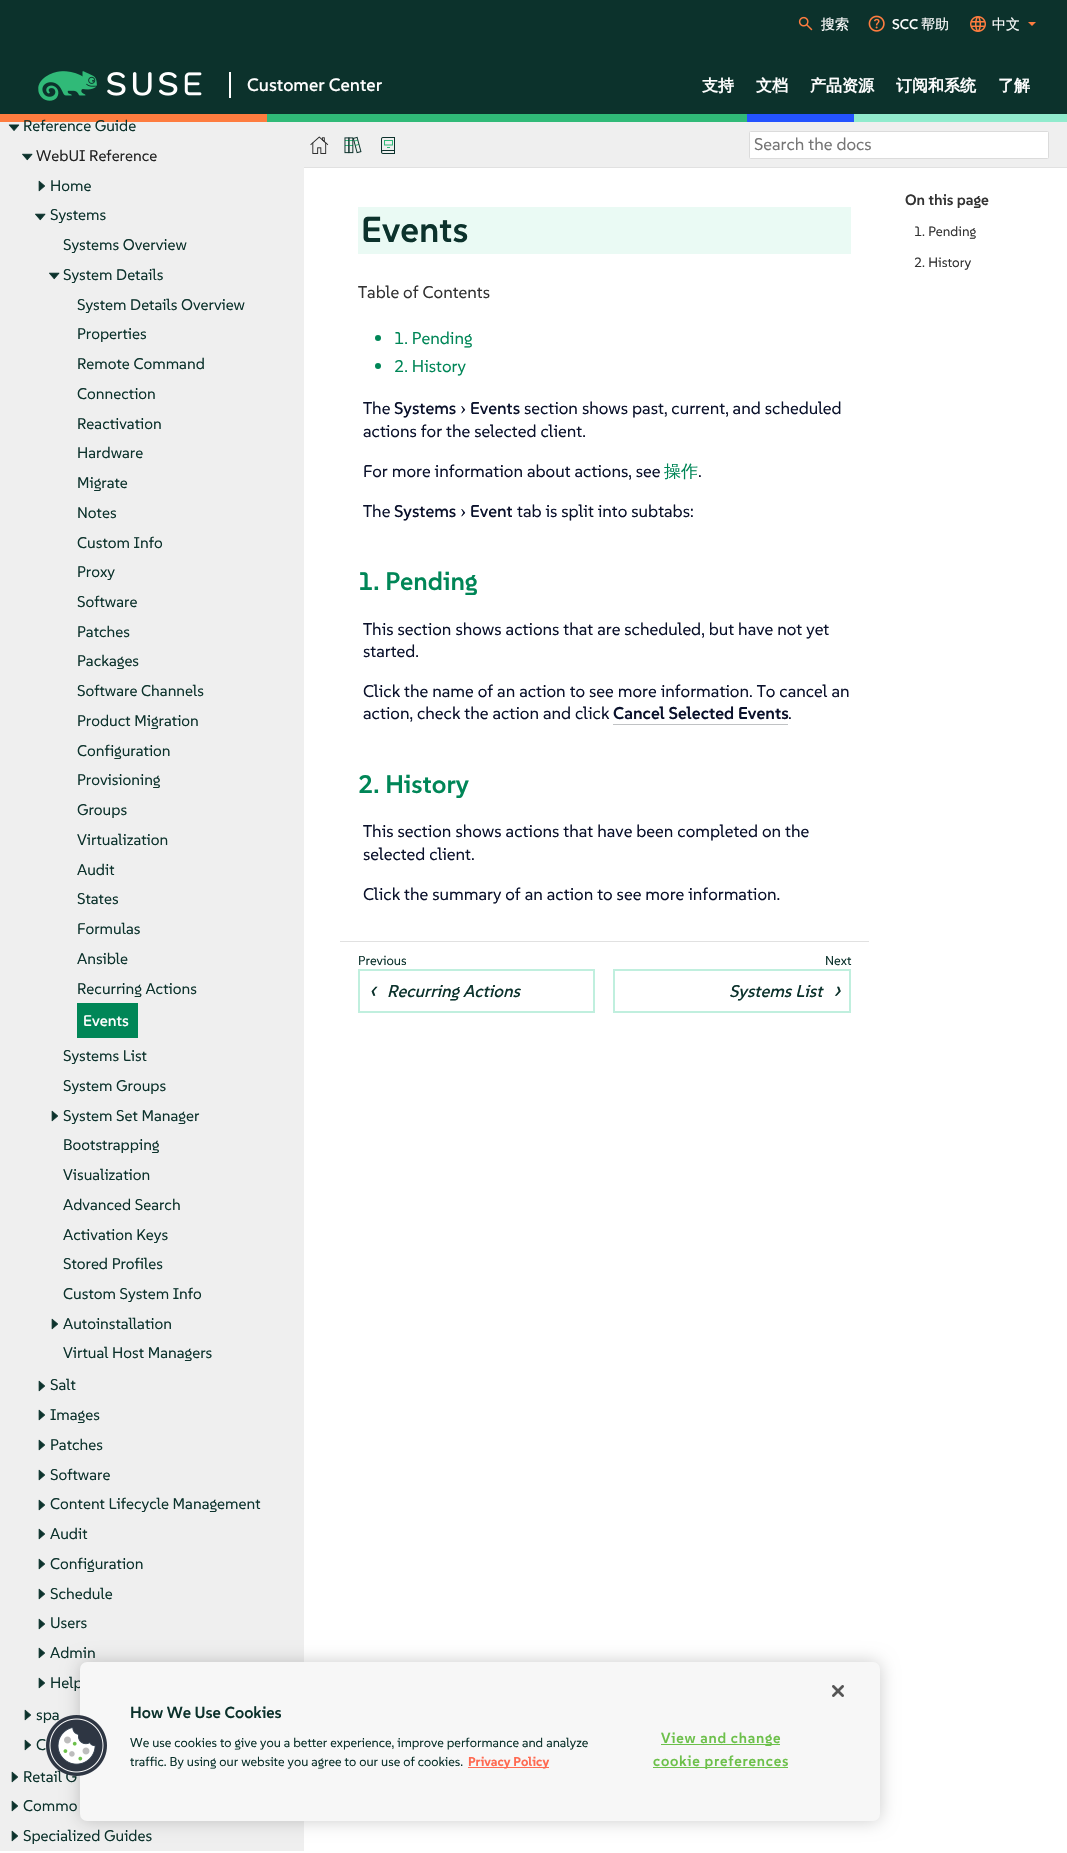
void draw(SkCanvas* c) {
SkPaint p;
p.setAntiAlias(true);
auto F=[&](const char* family, int weight, float size, bool italic = false){SkFontStyle style(weight, SkFontStyle::kNormal_Width,italic ? SkFontStyle::kItalic_Slant : SkFontStyle::kUpright_Slant);SkFont result(fontMgr->matchFamilyStyle(family, style), size);result.setSubpixel(true);return result;};
auto T=[&](const char* s, float x, float y, const SkFont& font){c->drawString(s, x, y, font, p);};
auto L=[&](const char* s, float x, float y, const SkFont& font, const SkPaint& ink, float letter, float word){std::vector<SkGlyphID> glyphs(font.countText(s, strlen(s), SkTextEncoding::kUTF8));std::vector<float> xs(glyphs.size());font.textToGlyphs(s, strlen(s), SkTextEncoding::kUTF8, glyphs);font.getXPos(glyphs, xs, x);float extra = 0;for (size_t i = 0; i < glyphs.size(); i++) {xs[i] += extra;extra += letter + word * (glyphs[i] == font.unicharToGlyph(' '));}c->drawTextBlob(SkTextBlob::MakeFromPosHGlyphs(glyphs, xs, y, font), 0, 0, ink);};
auto R=[&](float x, float y, float w, float h){c->drawRect(SkRect::MakeXYWH(x, y, w, h), p);};
auto Q=[&](float x, float y, float w, float h, float radius){c->drawRoundRect(SkRect::MakeXYWH(x, y, w, h), radius, radius, p);};
auto I=[&](const char* path, float x, float y, float w, float h){auto image = SkImages::DeferredFromEncodedData(SkData::MakeFromFileName(path));c->drawImageRect(image, SkRect::MakeXYWH(x, y, w, h), SkSamplingOptions());};
auto P=[&](const char* data, bool evenOdd = false){SkPath result = *SkParsePath::FromSVGString(data);if (evenOdd) result.setFillType(SkPathFillType::kEvenOdd);return result;};
c->clear(0xffffffff);
p.setColor(0xff0c322c);
R(0,0,1067,114);
I("1.png",798,16,15,15);
auto f1 = F("WenQuanYi Zen Hei",500,14);
p.setColor(0xffffffff);
T("搜索",821,29,f1);
I("2.png",868,15,17,17);
auto f2 = F("SUSE",500,14);
T("SCC",892,29,f2);
T("帮助",921,29,f1);
I("3.png",970,16,16,16);
T("中文",992,29,f1);
p.setColor(0xfffe7c3f);
c->drawPath(P("M1032 26l-4-4h8z"),p);
I("4.png",38,71,164,30);
p.setColor(0xffffffff);
R(229,72,2,26);
auto f3 = F("SUSE",500,18);
T("Customer Center",247,91,f3);
auto f4 = F("WenQuanYi Zen Hei",700,16);
T("支持",702,91,f4);
T("文档",756,91,f4);
T("产品资源",810,91,f4);
T("订阅和系统",896,91,f4);
T("了解",998,91,f4);
p.setColor(0xfffe7c3f);
R(0,114,267,8);
p.setColor(0xff30ba78);
R(267,114,480,8);
p.setColor(0xff2453ff);
R(747,114,107,8);
p.setColor(0xff90ebcd);
R(854,114,213,8);
p.setColor(0xffefefef);
R(0,122,304,1729);
I("5.png",8,124,12,7);
auto f5 = F("SUSE",400,15.5);
p.setColor(0xff0c322c);
T("Reference Guide",23,131,f5);
I("6.png",22,153,11,8);
p.setColor(0xff222222);
T("WebUI Reference",36,161,f5);
I("7.png",38,180,7,12);
p.setColor(0xff0c322c);
T("Home",50,191,f5);
I("8.png",35,213,11,8);
T("Systems",50,220,f5);
T("Systems Overview",63,250,f5);
I("9.png",49,272,11,8);
T("System Details",63,280,f5);
T("System Details Overview",77,310,f5);
T("Properties",77,339,f5);
T("Remote Command",77,369,f5);
T("Connection",77,399,f5);
T("Reactivation",77,429,f5);
T("Hardware",77,458,f5);
T("Migrate",77,488,f5);
T("Notes",77,518,f5);
T("Custom Info",77,548,f5);
T("Proxy",77,577,f5);
T("Software",77,607,f5);
T("Patches",77,637,f5);
T("Packages",77,666,f5);
T("Software Channels",77,696,f5);
T("Product Migration",77,726,f5);
T("Configuration",77,756,f5);
T("Provisioning",77,785,f5);
T("Groups",77,815,f5);
T("Virtualization",77,845,f5);
T("Audit",77,875,f5);
T("States",77,904,f5);
T("Formulas",77,934,f5);
T("Ansible",77,964,f5);
T("Recurring Actions",77,994,f5);
p.setColor(0xff008657);
R(77,1003,61,35);
auto f6 = F("SUSE",500,15.5);
p.setColor(0xffffffff);
T("Events",83,1026,f6);
p.setColor(0xff0c322c);
T("Systems List",63,1061,f5);
T("System Groups",63,1091,f5);
I("7.png",51,1110,7,12);
T("System Set Manager",63,1121,f5);
T("Bootstrapping",63,1150,f5);
T("Visualization",63,1180,f5);
T("Advanced Search",63,1210,f5);
T("Activation Keys",63,1240,f5);
T("Stored Profiles",63,1269,f5);
T("Custom System Info",63,1299,f5);
I("7.png",51,1318,7,12);
T("Autoinstallation",63,1329,f5);
T("Virtual Host Managers",63,1358,f5);
I("7.png",38,1380,7,12);
T("Salt",50,1390,f5);
I("7.png",38,1409,7,12);
T("Images",50,1420,f5);
I("7.png",38,1439,7,12);
T("Patches",50,1450,f5);
I("7.png",38,1469,7,12);
T("Software",50,1480,f5);
I("7.png",38,1499,7,12);
T("Content Lifecycle Management",50,1509,f5);
I("7.png",38,1528,7,12);
T("Audit",50,1539,f5);
I("7.png",38,1558,7,12);
T("Configuration",50,1569,f5);
I("7.png",38,1588,7,12);
T("Schedule",50,1599,f5);
I("7.png",38,1618,7,12);
T("Users",50,1628,f5);
I("7.png",38,1647,7,12);
T("Admin",50,1658,f5);
I("7.png",38,1677,7,12);
T("Help",50,1688,f5);
I("7.png",24,1709,7,12);
T("spa",36,1720,f5);
I("7.png",24,1739,7,12);
T("C",36,1750,f5);
I("7.png",11,1771,7,12);
T("Retail G",23,1782,f5);
I("7.png",11,1800,7,12);
T("Commo",23,1811,f5);
I("7.png",11,1830,7,12);
T("Specialized Guides",23,1841,f5);
p.setColor(0xffe1e1e1);
R(304,167,763,1);
p.setColor(0xffefefef);
R(304,122,763,45);
I("10.png",310,136,19,18);
I("11.png",344,136,18,18);
I("12.png",381,137,14,17);
p.setColor(0xffffffff);
c->drawRoundRect(SkRect::MakeXYWH(749.5,131.5,299,27),1,1,p);
p.setStroke(true);
p.setStrokeWidth(1);
p.setColor(0xffdbdbdb);
c->drawRoundRect(SkRect::MakeXYWH(749.5,131.5,299,27),1,1,p);
auto f7 = F("SUSE",400,17);
p.setStroke(false);
p.setColor(0xff757575);
T("Search the docs",754,150,f7);
p.setColor(0xffeafaf4);
R(358,207,493,47);
auto f8 = F("SUSE",600,36);
p.setColor(0xff0c322c);
T("Events",361,242,f8);
p.setColor(0xff333333);
T("Table of Contents",358,298,f7);
p.setColor(0xff008657);
c->drawCircle(378,338,3,p);
T("1. Pending",394,344,f7);
c->drawCircle(378,366,3,p);
T("2. History",394,372,f7);
p.setColor(0xff0a112b);
T("The",363,414,f7);
auto f9 = F("SUSE",500,17);
T("Systems",394,414,f9);
auto f10 = F("Liberation Serif",400,19);
T("›",460,414,f10);
T("Events",470,414,f9);
T("section shows past, current, and scheduled",524,414,f7);
T("actions for the selected client.",363,437,f7);
T("For more information about actions, see",363,477,f7);
auto f11 = F("WenQuanYi Zen Hei",500,17);
p.setColor(0xff008657);
T("操作",664,477,f11);
p.setColor(0xff0a112b);
T(".",698,477,f7);
T("The",363,517,f7);
T("Systems",394,517,f9);
T("›",460,517,f10);
T("Event",470,517,f9);
T("tab is split into subtabs:",517,517,f7);
auto f12 = F("SUSE",600,25.5);
p.setColor(0xff008657);
T("1. Pending",358,590,f12);
p.setColor(0xff0a112b);
T("This section shows actions that are scheduled, but have not yet",363,635,f7);
T("started.",363,657,f7);
T("Click the name of an action to see more information. To cancel an",363,697,f7);
T("action, check the action and click",363,719,f7);
auto f13 = F("SUSE",600,17);
T("Cancel Selected Events",613,719,f13);
p.setColor(0xffc0c2c4);
R(613,724,175,1);
p.setColor(0xff0a112b);
T(".",788,719,f7);
p.setColor(0xff008657);
T("2. History",358,793,f12);
p.setColor(0xff0a112b);
T("This section shows actions that have been completed on the",363,837,f7);
T("selected client.",363,860,f7);
T("Click the summary of an action to see more information.",363,900,f7);
p.setColor(0xffe1e1e1);
R(340,941,529,1);
auto f14 = F("SUSE",400,13);
p.setColor(0xff0c322c);
T("Previous",358,965,f14);
p.setStroke(true);
p.setStrokeWidth(2);
p.setColor(0xffc0efde);
c->drawRect(SkRect::MakeXYWH(359,970,235,42),p);
auto f15 = F("SUSE",400,25.5,true);
p.setStroke(false);
p.setColor(0xff0c322c);
T("‹",369,998,f15);
auto f16 = F("SUSE",500,17,true);
T("Recurring Actions",387,997,f16);
T("Next",825,965,f14);
p.setStroke(true);
p.setColor(0xffc0efde);
c->drawRect(SkRect::MakeXYWH(614,970,236,42),p);
p.setStroke(false);
p.setColor(0xff0c322c);
T("Systems List",729,997,f16);
T("›",833,998,f15);
auto f17 = F("SUSE",600,15);
p.setColor(0xff333333);
T("On this page",905,205,f17);
auto f18 = F("SUSE",400,13.5);
T("1. Pending",914,236,f18);
T("2. History",914,267,f18);
p.setColor(0x33000000);
p.setMaskFilter(SkMaskFilter::MakeBlur(kNormal_SkBlurStyle, 9));
c->drawRoundRect(SkRect::MakeXYWH(80,1662,800,159),7,7,p);
p.setMaskFilter(nullptr);
p.setColor(0xfff7f7f7);
Q(80,1662,800,159,7);
I("13.png",46,1715,61,61);
I("14.png",832,1685,12,12);
auto f19 = F("SUSE",600,16);
p.setColor(0xff0c322c);
T("How We Use Cookies",130,1718,f19);
auto f20 = F("SUSE",400,12.8);
T("We use cookies to give you a better experience, improve performance and analyze",130,1747,f20);
T("traffic. By using our website you agree to our use of cookies.",130,1766,f20);
p.setColor(0xffff6a52);
R(468,1767,81,1);
auto f21 = F("SUSE",700,12.8);
T("Privacy Policy",468,1766,f21);
p.setColor(0xff6cc04a);
R(661,1744,119,1);
auto f22 = F("SUSE",600,14.5);
L("View and change",661,1743,f22,p,.75,0);
R(653,1767,135,1);
L("cookie preferences",653,1766,f22,p,.75,0);
}
